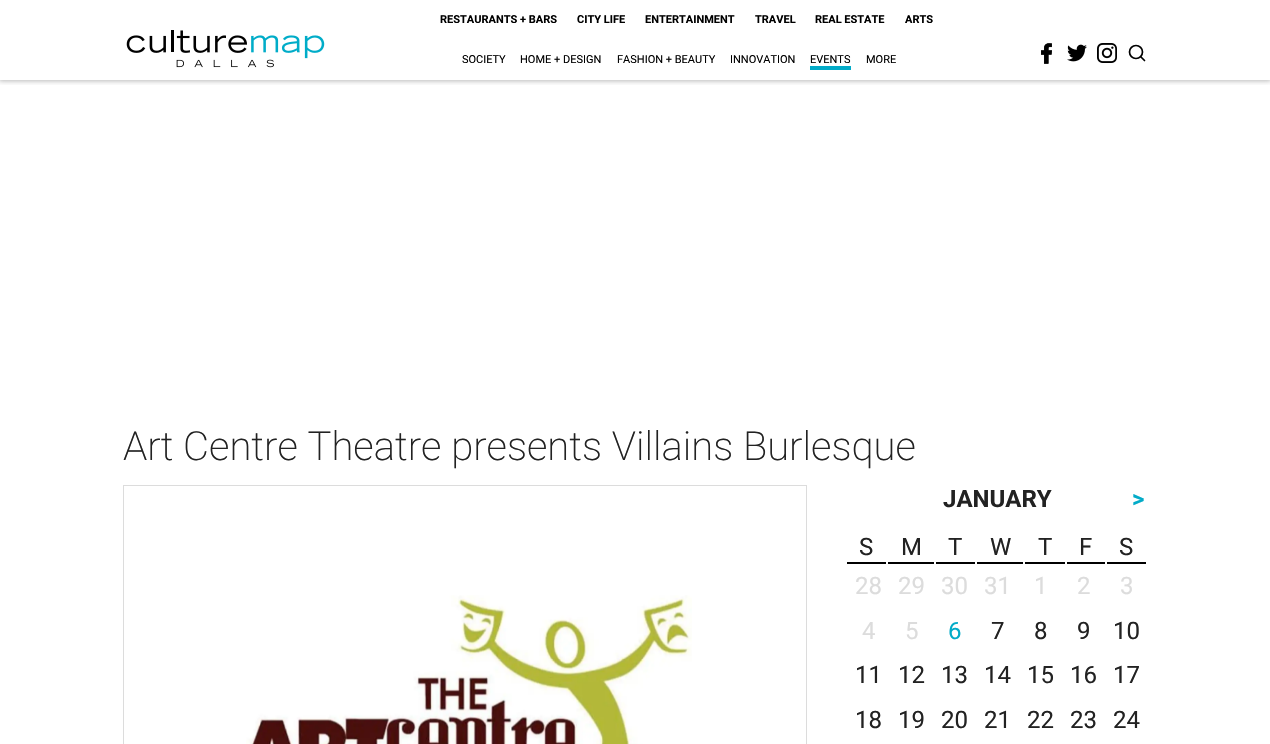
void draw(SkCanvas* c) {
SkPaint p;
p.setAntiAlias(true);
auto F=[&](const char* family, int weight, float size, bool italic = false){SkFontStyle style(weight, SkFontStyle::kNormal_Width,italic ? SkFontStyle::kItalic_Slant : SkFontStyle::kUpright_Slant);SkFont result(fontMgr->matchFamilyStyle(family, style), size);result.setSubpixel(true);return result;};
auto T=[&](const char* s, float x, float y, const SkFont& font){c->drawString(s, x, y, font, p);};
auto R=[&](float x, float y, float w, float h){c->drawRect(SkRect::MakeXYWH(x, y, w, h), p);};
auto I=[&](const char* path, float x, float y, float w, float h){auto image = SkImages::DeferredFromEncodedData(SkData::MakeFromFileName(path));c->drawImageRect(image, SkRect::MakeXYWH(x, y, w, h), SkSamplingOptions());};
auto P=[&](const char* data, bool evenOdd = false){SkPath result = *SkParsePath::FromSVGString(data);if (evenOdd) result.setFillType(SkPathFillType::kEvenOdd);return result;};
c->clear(0xffffffff);
c->save();
c->clipRect(SkRect::MakeXYWH(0,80,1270,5));
p.setColor(0x47000000);
p.setMaskFilter(SkMaskFilter::MakeBlur(kNormal_SkBlurStyle, 2.5));
c->drawRect(SkRect::MakeXYWH(-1,-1,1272,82),p);
p.setMaskFilter(nullptr);
c->restore();
I("1.png",126,30,199,38);
auto f1 = F("Roboto",700,11);
p.setColor(0xff000000);
T("RESTAURANTS + BARS",440,23,f1);
T("CITY LIFE",577,23,f1);
T("ENTERTAINMENT",645,23,f1);
T("TRAVEL",755,23,f1);
T("REAL ESTATE",815,23,f1);
T("ARTS",905,23,f1);
auto f2 = F("Roboto",400,11);
T("SOCIETY",462,63,f2);
T("HOME + DESIGN",520,63,f2);
T("FASHION + BEAUTY",617,63,f2);
T("INNOVATION",730,63,f2);
T("EVENTS",810,63,f2);
p.setColor(0xff02abc8);
R(810,66,41,4);
p.setColor(0xff000000);
T("MORE",866,63,f2);
I("2.png",1041,43,11,21);
I("3.png",1067,44,20,18);
I("4.png",1097,43,20,20);
p.setStroke(true);
p.setStrokeWidth(1.7);
c->drawCircle(1136,52,6.5,p);
p.setStrokeCap(SkPaint::kRound_Cap);
p.setStrokeJoin(SkPaint::kRound_Join);
c->drawPath(P("M1144.5 60.5l-3.5-3.5"),p);
auto f3 = F("Roboto",200,40);
p.setStroke(false);
p.setColor(0xff222222);
T("Art Centre Theatre presents Villains Burlesque",123,460,f3);
I("5.png",246,595,446,149);
p.setStroke(true);
p.setStrokeWidth(1);
p.setStrokeCap(SkPaint::kButt_Cap);
p.setStrokeJoin(SkPaint::kMiter_Join);
p.setColor(0xffdcdcdc);
c->drawRect(SkRect::MakeXYWH(123.5,485.5,683,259),p);
auto f4 = F("Roboto",700,24);
p.setStroke(false);
p.setColor(0xff222222);
T("JANUARY",943,507,f4);
p.setColor(0xff02abc8);
T(">",1132,507,f4);
p.setColor(0xff000000);
R(847,562,39,2);
auto f5 = F("Roboto",400,24);
p.setColor(0xff222222);
T("S",859,555,f5);
p.setColor(0xff000000);
R(888,562,46,2);
p.setColor(0xff222222);
T("M",901,555,f5);
p.setColor(0xff000000);
R(936,562,39,2);
p.setColor(0xff222222);
T("T",948,555,f5);
p.setColor(0xff000000);
R(977,562,46,2);
p.setColor(0xff222222);
T("W",990,555,f5);
p.setColor(0xff000000);
R(1025,562,40,2);
p.setColor(0xff222222);
T("T",1038,555,f5);
p.setColor(0xff000000);
R(1067,562,38,2);
p.setColor(0xff222222);
T("F",1079,555,f5);
p.setColor(0xff000000);
R(1107,562,39,2);
p.setColor(0xff222222);
T("S",1119,555,f5);
p.setColor(0xffdcdcdc);
T("28",855,594,f5);
T("29",898,594,f5);
T("30",941,594,f5);
T("31",984,594,f5);
T("1",1034,594,f5);
T("2",1077,594,f5);
T("3",1120,594,f5);
T("4",862,639,f5);
T("5",905,639,f5);
p.setColor(0xff02abc8);
T("6",948,639,f5);
p.setColor(0xff222222);
T("7",991,639,f5);
T("8",1034,639,f5);
T("9",1077,639,f5);
T("10",1113,639,f5);
T("11",855,683,f5);
T("12",898,683,f5);
T("13",941,683,f5);
T("14",984,683,f5);
T("15",1027,683,f5);
T("16",1070,683,f5);
T("17",1113,683,f5);
T("18",855,728,f5);
T("19",898,728,f5);
T("20",941,728,f5);
T("21",984,728,f5);
T("22",1027,728,f5);
T("23",1070,728,f5);
T("24",1113,728,f5);
}
